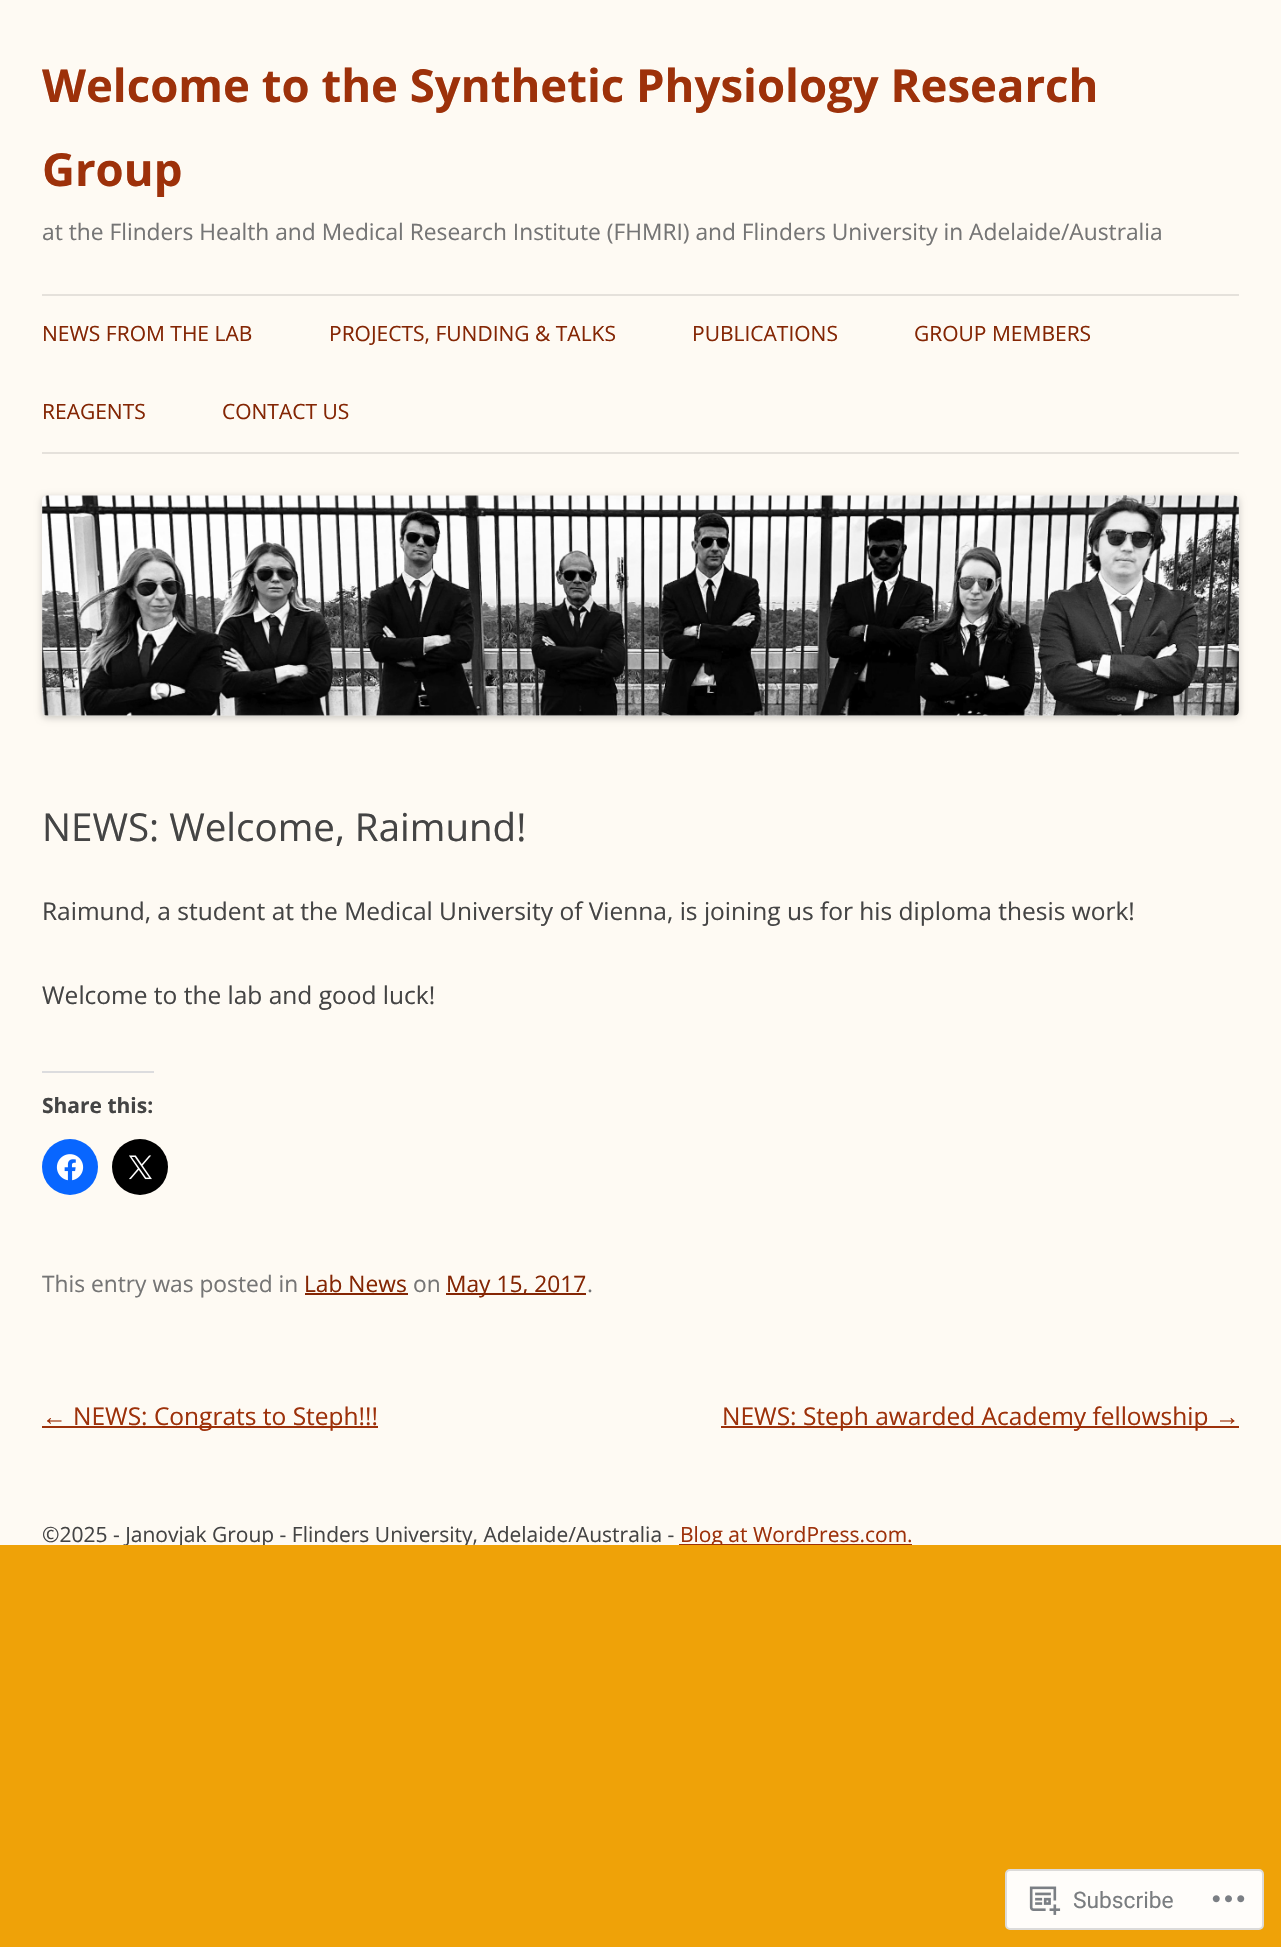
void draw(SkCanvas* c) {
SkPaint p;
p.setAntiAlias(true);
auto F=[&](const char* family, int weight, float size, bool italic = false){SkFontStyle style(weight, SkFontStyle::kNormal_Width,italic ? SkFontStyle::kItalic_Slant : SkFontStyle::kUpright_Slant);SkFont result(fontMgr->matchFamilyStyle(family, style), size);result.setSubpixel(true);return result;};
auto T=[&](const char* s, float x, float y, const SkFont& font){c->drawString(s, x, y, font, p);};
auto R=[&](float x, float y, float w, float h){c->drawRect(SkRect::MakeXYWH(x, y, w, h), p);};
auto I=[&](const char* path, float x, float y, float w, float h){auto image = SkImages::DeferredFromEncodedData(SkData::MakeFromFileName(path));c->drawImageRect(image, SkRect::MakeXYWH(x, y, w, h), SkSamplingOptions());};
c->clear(0xffefa208);
p.setColor(0xfffefaf3);
R(0,0,1281,1545);
auto f1 = F("Open Sans",700,45.5);
p.setColor(0xff9d310a);
T("Welcome to the Synthetic Physiology Research",42,102,f1);
T("Group",42,186,f1);
auto f2 = F("Open Sans",400,22.75);
p.setColor(0xff757575);
T("at the Flinders Health and Medical Research Institute (FHMRI) and Flinders University in Adelaide/Australia",42,240,f2);
p.setColor(0xffe5e1db);
R(42,294,1197,2);
R(42,452,1197,2);
auto f3 = F("Open Sans",400,21);
p.setColor(0xff842604);
T("NEWS FROM THE LAB",42,341,f3);
T("PROJECTS, FUNDING & TALKS",329,341,f3);
T("PUBLICATIONS",692,341,f3);
T("GROUP MEMBERS",914,341,f3);
T("REAGENTS",42,419,f3);
T("CONTACT US",222,419,f3);
p.setColor(0x33000000);
p.setMaskFilter(SkMaskFilter::MakeBlur(kNormal_SkBlurStyle, 3.5));
c->drawRoundRect(SkRect::MakeXYWH(42,497,1197,221),5,5,p);
p.setMaskFilter(nullptr);
I("1.png",42,495,1197,221);
auto f4 = F("Open Sans",400,38.5);
p.setColor(0xff444444);
T("NEWS: Welcome, Raimund!",42,841,f4);
auto f5 = F("Open Sans",400,24.5);
T("Raimund, a student at the Medical University of Vienna, is joining us for his diploma thesis work!",42,920,f5);
T("Welcome to the lab and good luck!",42,1004,f5);
p.setColor(0xffdcdcde);
R(42,1071,112,2);
auto f6 = F("Open Sans",700,21);
p.setColor(0xff444444);
T("Share this:",42,1113,f6);
p.setColor(0xff0866ff);
c->drawCircle(70,1167,28,p);
I("2.png",56,1154,28,27);
p.setColor(0xff000000);
c->drawCircle(140,1167,28,p);
I("3.png",129,1155,23,25);
p.setColor(0xff757575);
T("This entry was posted in",42,1292,f2);
p.setColor(0xff842604);
T("Lab News",304,1292,f2);
R(305,1293,103,2);
p.setColor(0xff757575);
T("on",413,1292,f2);
p.setColor(0xff842604);
R(446,1293,140,2);
T("May 15, 2017",446,1292,f2);
p.setColor(0xff757575);
T(".",587,1292,f2);
auto f7 = F("Liberation Sans",400,24.5);
p.setColor(0xff9d310a);
T("←",42,1425,f7);
R(42,1426,336,2);
T("NEWS: Congrats to Steph!!!",73,1425,f5);
R(721,1426,518,2);
T("NEWS: Steph awarded Academy fellowship",722,1425,f5);
T("→",1215,1425,f7);
c->save();
c->clipRect(SkRect::MakeXYWH(0,0,1281,1545));
p.setColor(0xff444444);
T("©2025 - Janovjak Group - Flinders University, Adelaide/Australia -",42,1542,f3);
c->restore();
p.setColor(0xff9d310a);
R(679,1544,233,1);
c->save();
c->clipRect(SkRect::MakeXYWH(0,0,1281,1545));
T("Blog at WordPress.com.",680,1542,f3);
c->restore();
p.setColor(0xfffffdfa);
c->drawRoundRect(SkRect::MakeXYWH(1006,1870,257,59),4,4,p);
p.setStroke(true);
p.setStrokeWidth(2);
p.setColor(0xffdcdbda);
c->drawRoundRect(SkRect::MakeXYWH(1006,1870,257,59),4,4,p);
I("4.png",1029,1886,32,29);
auto f8 = F("Roboto",400,22.75);
p.setStroke(false);
p.setColor(0xff7a7d80);
T("Subscribe",1073,1908,f8);
I("5.png",1212,1895,33,8);
}
